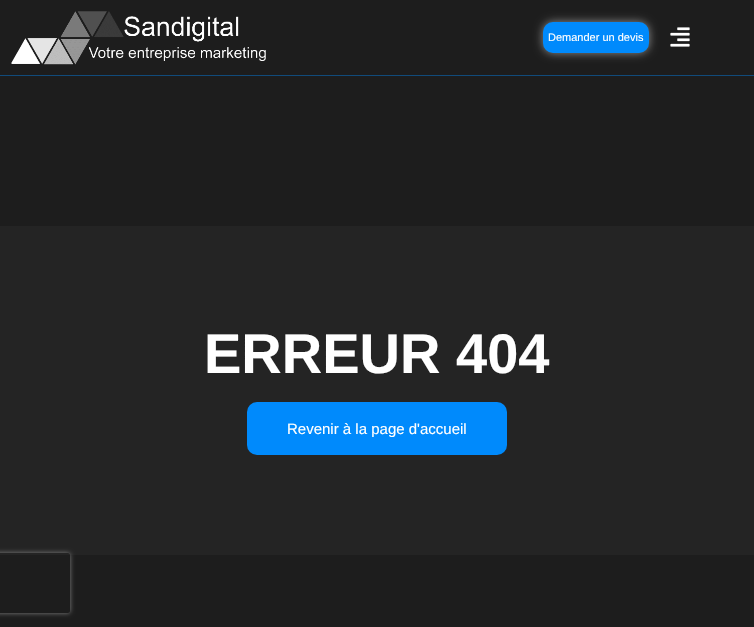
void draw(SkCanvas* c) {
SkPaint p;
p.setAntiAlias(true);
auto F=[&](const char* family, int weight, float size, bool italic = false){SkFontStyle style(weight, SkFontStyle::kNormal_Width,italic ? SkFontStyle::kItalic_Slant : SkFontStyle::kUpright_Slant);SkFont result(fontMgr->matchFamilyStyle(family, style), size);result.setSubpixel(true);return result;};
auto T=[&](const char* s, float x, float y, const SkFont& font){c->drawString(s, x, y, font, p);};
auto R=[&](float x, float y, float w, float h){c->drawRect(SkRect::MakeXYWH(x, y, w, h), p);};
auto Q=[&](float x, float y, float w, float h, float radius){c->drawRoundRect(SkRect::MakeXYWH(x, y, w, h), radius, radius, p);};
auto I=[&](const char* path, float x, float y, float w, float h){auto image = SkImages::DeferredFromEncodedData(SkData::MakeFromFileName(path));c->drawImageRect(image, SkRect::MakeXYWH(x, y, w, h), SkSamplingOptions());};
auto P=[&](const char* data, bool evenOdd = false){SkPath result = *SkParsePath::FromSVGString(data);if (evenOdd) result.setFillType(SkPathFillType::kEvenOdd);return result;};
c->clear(0xff1d1d1d);
p.setColor(0xff114b7b);
R(0,75,754,1);
I("1.png",11,11,255,54);
p.setColor(0x80ffffff);
p.setMaskFilter(SkMaskFilter::MakeBlur(kNormal_SkBlurStyle, 5));
c->drawRoundRect(SkRect::MakeXYWH(543,22,106,31),10,10,p);
p.setMaskFilter(nullptr);
p.setColor(0xff008afc);
Q(543,22,106,31,10);
auto f1 = F("Liberation Sans",400,11);
p.setColor(0xffffffff);
T("Demander un devis",548,41,f1);
I("2.png",670,27,20,20);
p.setColor(0xff242424);
R(0,226,754,329);
auto f2 = F("Liberation Sans",700,56);
p.setColor(0xffffffff);
T("ERREUR 404",204,373,f2);
p.setColor(0xff008afc);
Q(247,402,260,53,10);
auto f3 = F("Liberation Sans",400,15);
p.setColor(0xffffffff);
T("Revenir à la page d'accueil",287,434,f3);
c->save();
c->clipPath(P("M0 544h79v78h-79zm-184 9h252c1 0 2 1 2 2v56c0 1-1 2-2 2h-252c-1 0-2-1-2-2v-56c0-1 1-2 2-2z",true),true);
p.setColor(0xff808080);
p.setMaskFilter(SkMaskFilter::MakeBlur(kNormal_SkBlurStyle, 2.5));
c->drawRoundRect(SkRect::MakeXYWH(-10,553,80,60),2,2,p);
p.setMaskFilter(nullptr);
c->restore();
}
